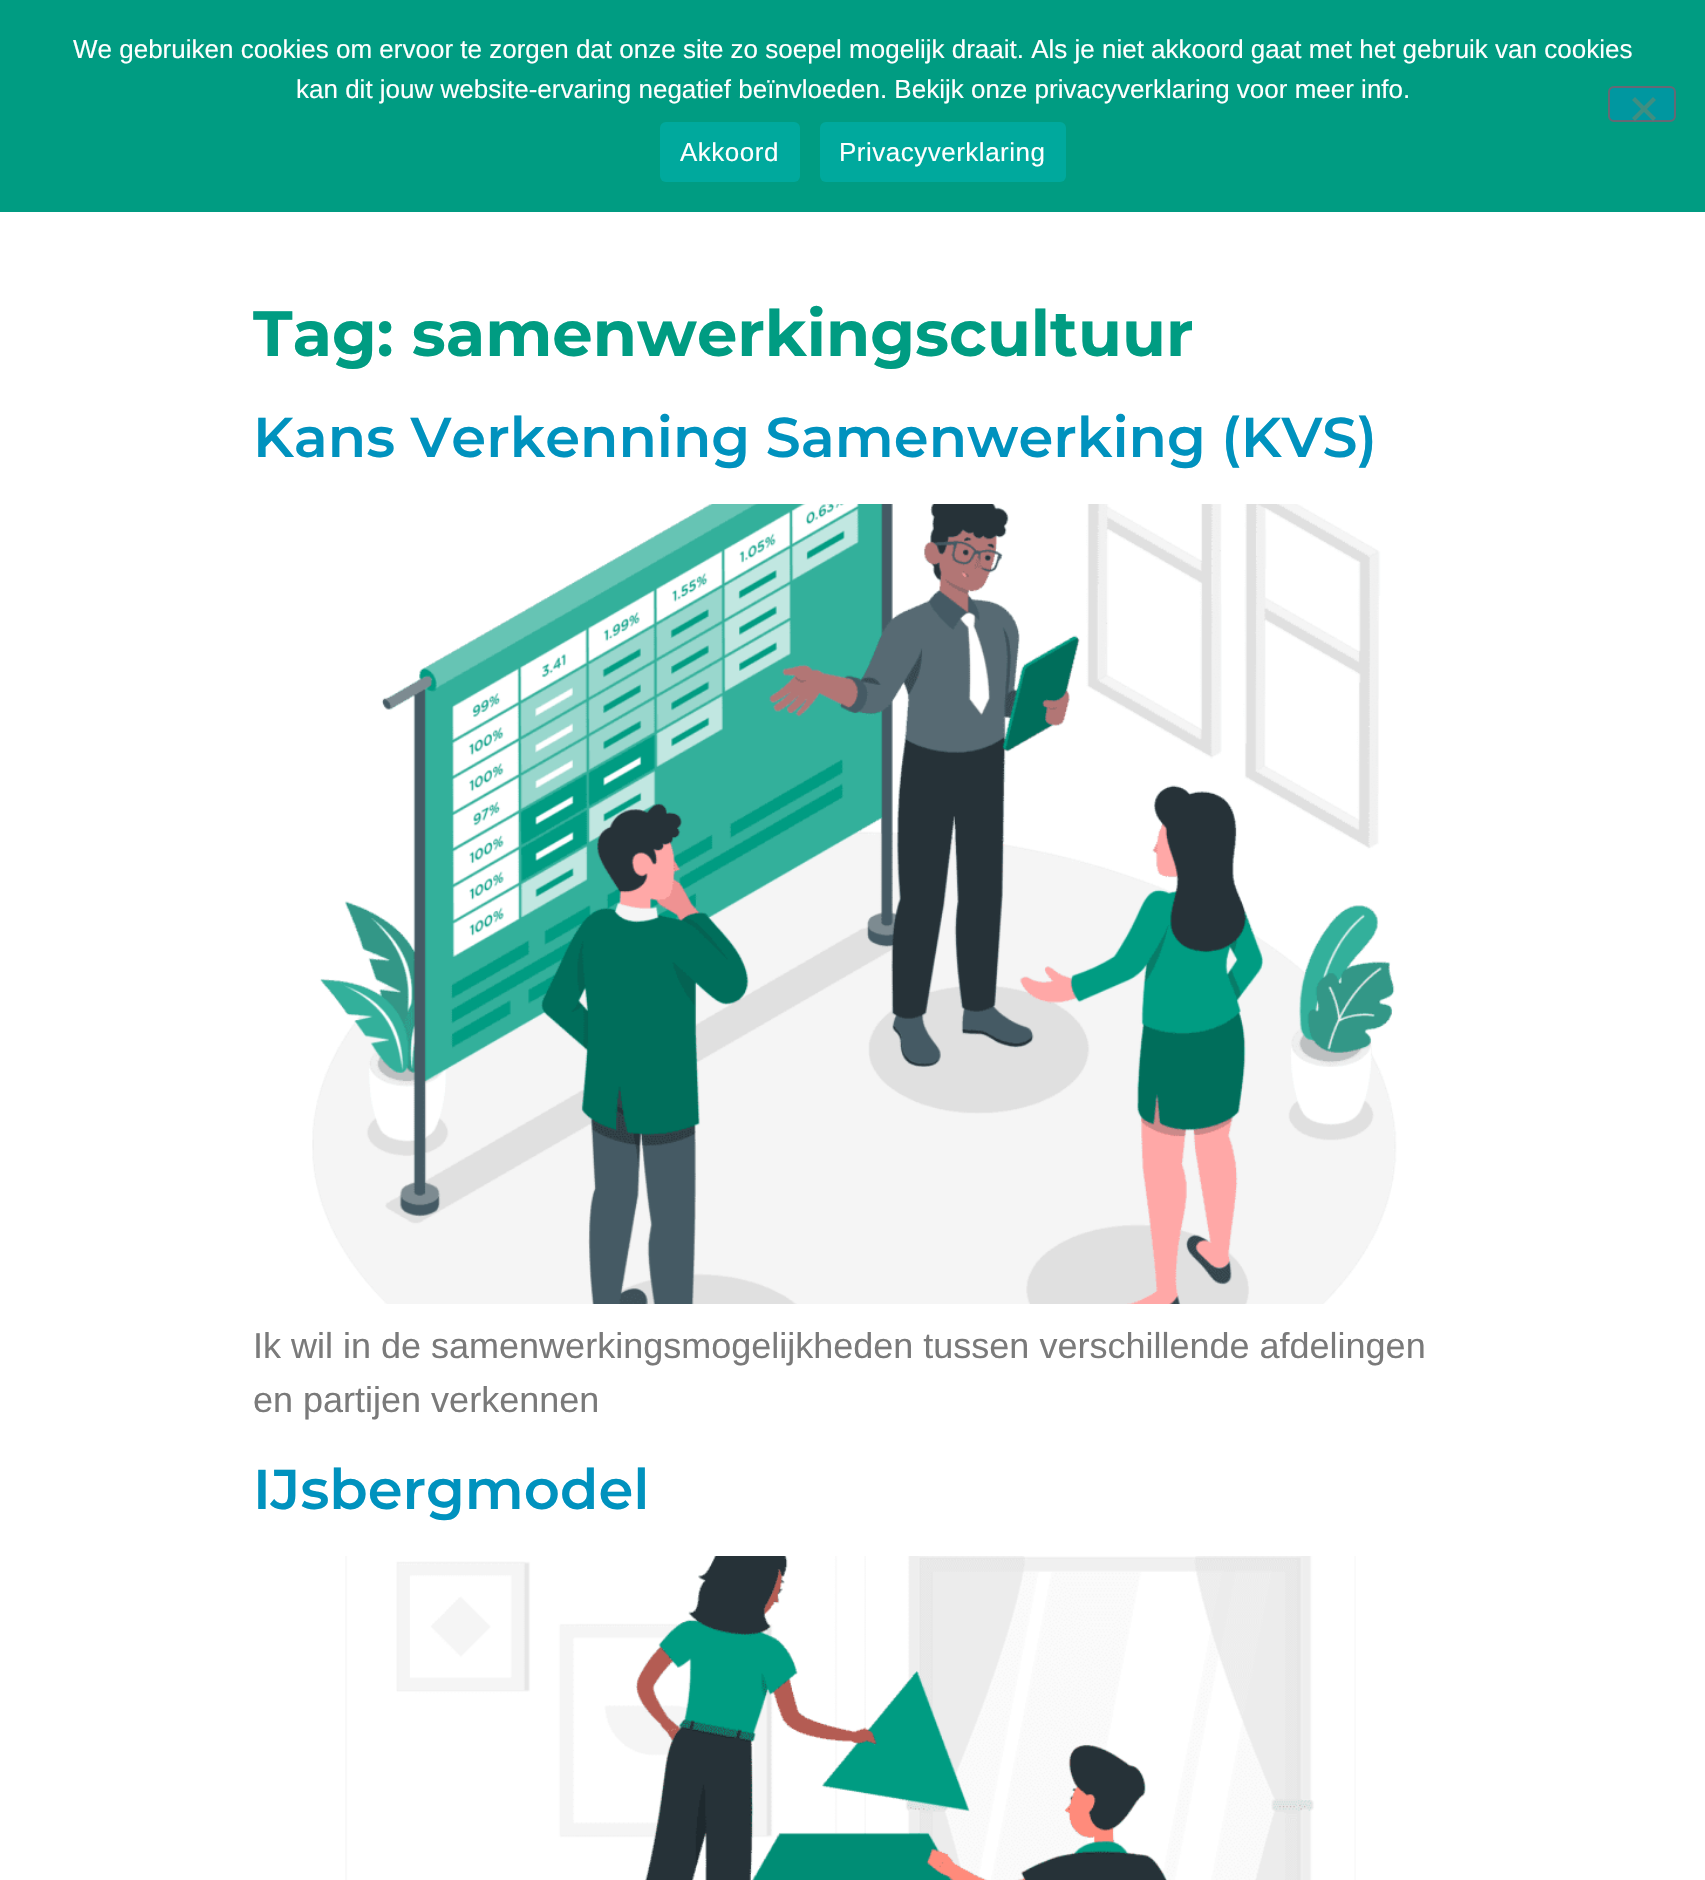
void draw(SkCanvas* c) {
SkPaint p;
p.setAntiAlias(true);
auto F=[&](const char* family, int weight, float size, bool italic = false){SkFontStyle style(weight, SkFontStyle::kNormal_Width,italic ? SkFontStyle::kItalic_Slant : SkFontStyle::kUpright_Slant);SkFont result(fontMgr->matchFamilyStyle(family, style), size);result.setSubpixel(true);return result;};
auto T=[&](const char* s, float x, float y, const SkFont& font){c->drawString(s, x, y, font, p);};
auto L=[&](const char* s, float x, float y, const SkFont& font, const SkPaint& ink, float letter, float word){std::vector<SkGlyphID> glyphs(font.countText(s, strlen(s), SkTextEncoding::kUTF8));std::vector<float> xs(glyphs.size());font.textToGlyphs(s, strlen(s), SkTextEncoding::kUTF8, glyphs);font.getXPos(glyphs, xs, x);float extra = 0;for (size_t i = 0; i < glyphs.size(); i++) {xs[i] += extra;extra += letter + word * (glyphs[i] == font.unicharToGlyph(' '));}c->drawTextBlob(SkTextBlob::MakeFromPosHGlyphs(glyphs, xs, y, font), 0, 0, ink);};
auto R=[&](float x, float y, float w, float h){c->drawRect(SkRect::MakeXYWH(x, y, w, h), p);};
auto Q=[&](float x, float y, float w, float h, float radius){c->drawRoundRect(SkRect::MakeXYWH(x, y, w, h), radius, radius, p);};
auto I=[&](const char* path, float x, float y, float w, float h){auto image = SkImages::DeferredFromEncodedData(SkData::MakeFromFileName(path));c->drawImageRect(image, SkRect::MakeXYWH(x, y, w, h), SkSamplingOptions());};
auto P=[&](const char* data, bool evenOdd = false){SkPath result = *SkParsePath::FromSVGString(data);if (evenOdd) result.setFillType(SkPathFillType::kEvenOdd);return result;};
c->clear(0xffffffff);
p.setColor(0xff009c82);
R(0,0,1705,212);
auto f1 = F("Liberation Sans",400,26);
p.setColor(0xffffffff);
T("We gebruiken cookies om ervoor te zorgen dat onze site zo soepel mogelijk draait. Als je niet akkoord gaat met het gebruik van cookies",73,58,f1);
T("kan dit jouw website-ervaring negatief beïnvloeden. Bekijk onze privacyverklaring voor meer info.",296,98,f1);
p.setColor(0xff0097a0);
c->drawRoundRect(SkRect::MakeXYWH(1609,87,66,34),5,5,p);
p.setStroke(true);
p.setStrokeWidth(2);
p.setColor(0xff666874);
c->drawRoundRect(SkRect::MakeXYWH(1609,87,66,34),5,5,p);
p.setStroke(false);
p.setColor(0xff408e81);
c->drawPath(P("M1653 97l3 3l-21 21l-3-3z"),p);
c->drawPath(P("M1632 100l3-3l21 21l-3 3z"),p);
p.setColor(0xff00a99d);
Q(660,122,140,60,6);
p.setColor(0xffffffff);
L("Akkoord",680,161,f1,p,.5,0);
p.setColor(0xff00a99d);
Q(820,122,246,60,6);
p.setColor(0xffffffff);
L("Privacyverklaring",839,161,f1,p,.5,0);
auto f2 = F("Montserrat",700,64);
p.setColor(0xff009c82);
T("Tag: samenwerkingscultuur",253,356,f2);
auto f3 = F("Montserrat",600,56);
p.setColor(0xff0092be);
T("Kans Verkenning Samenwerking (KVS)",253,457,f3);
I("1.png",312,504,1085,800);
auto f4 = F("Arimo",400,36);
p.setColor(0xff7a7a7a);
T("Ik wil in de samenwerkingsmogelijkheden tussen verschillende afdelingen",253,1358,f4);
T("en partijen verkennen",253,1412,f4);
p.setColor(0xff0092be);
T("IJsbergmodel",253,1509,f3);
I("2.png",345,1556,1011,324);
}
